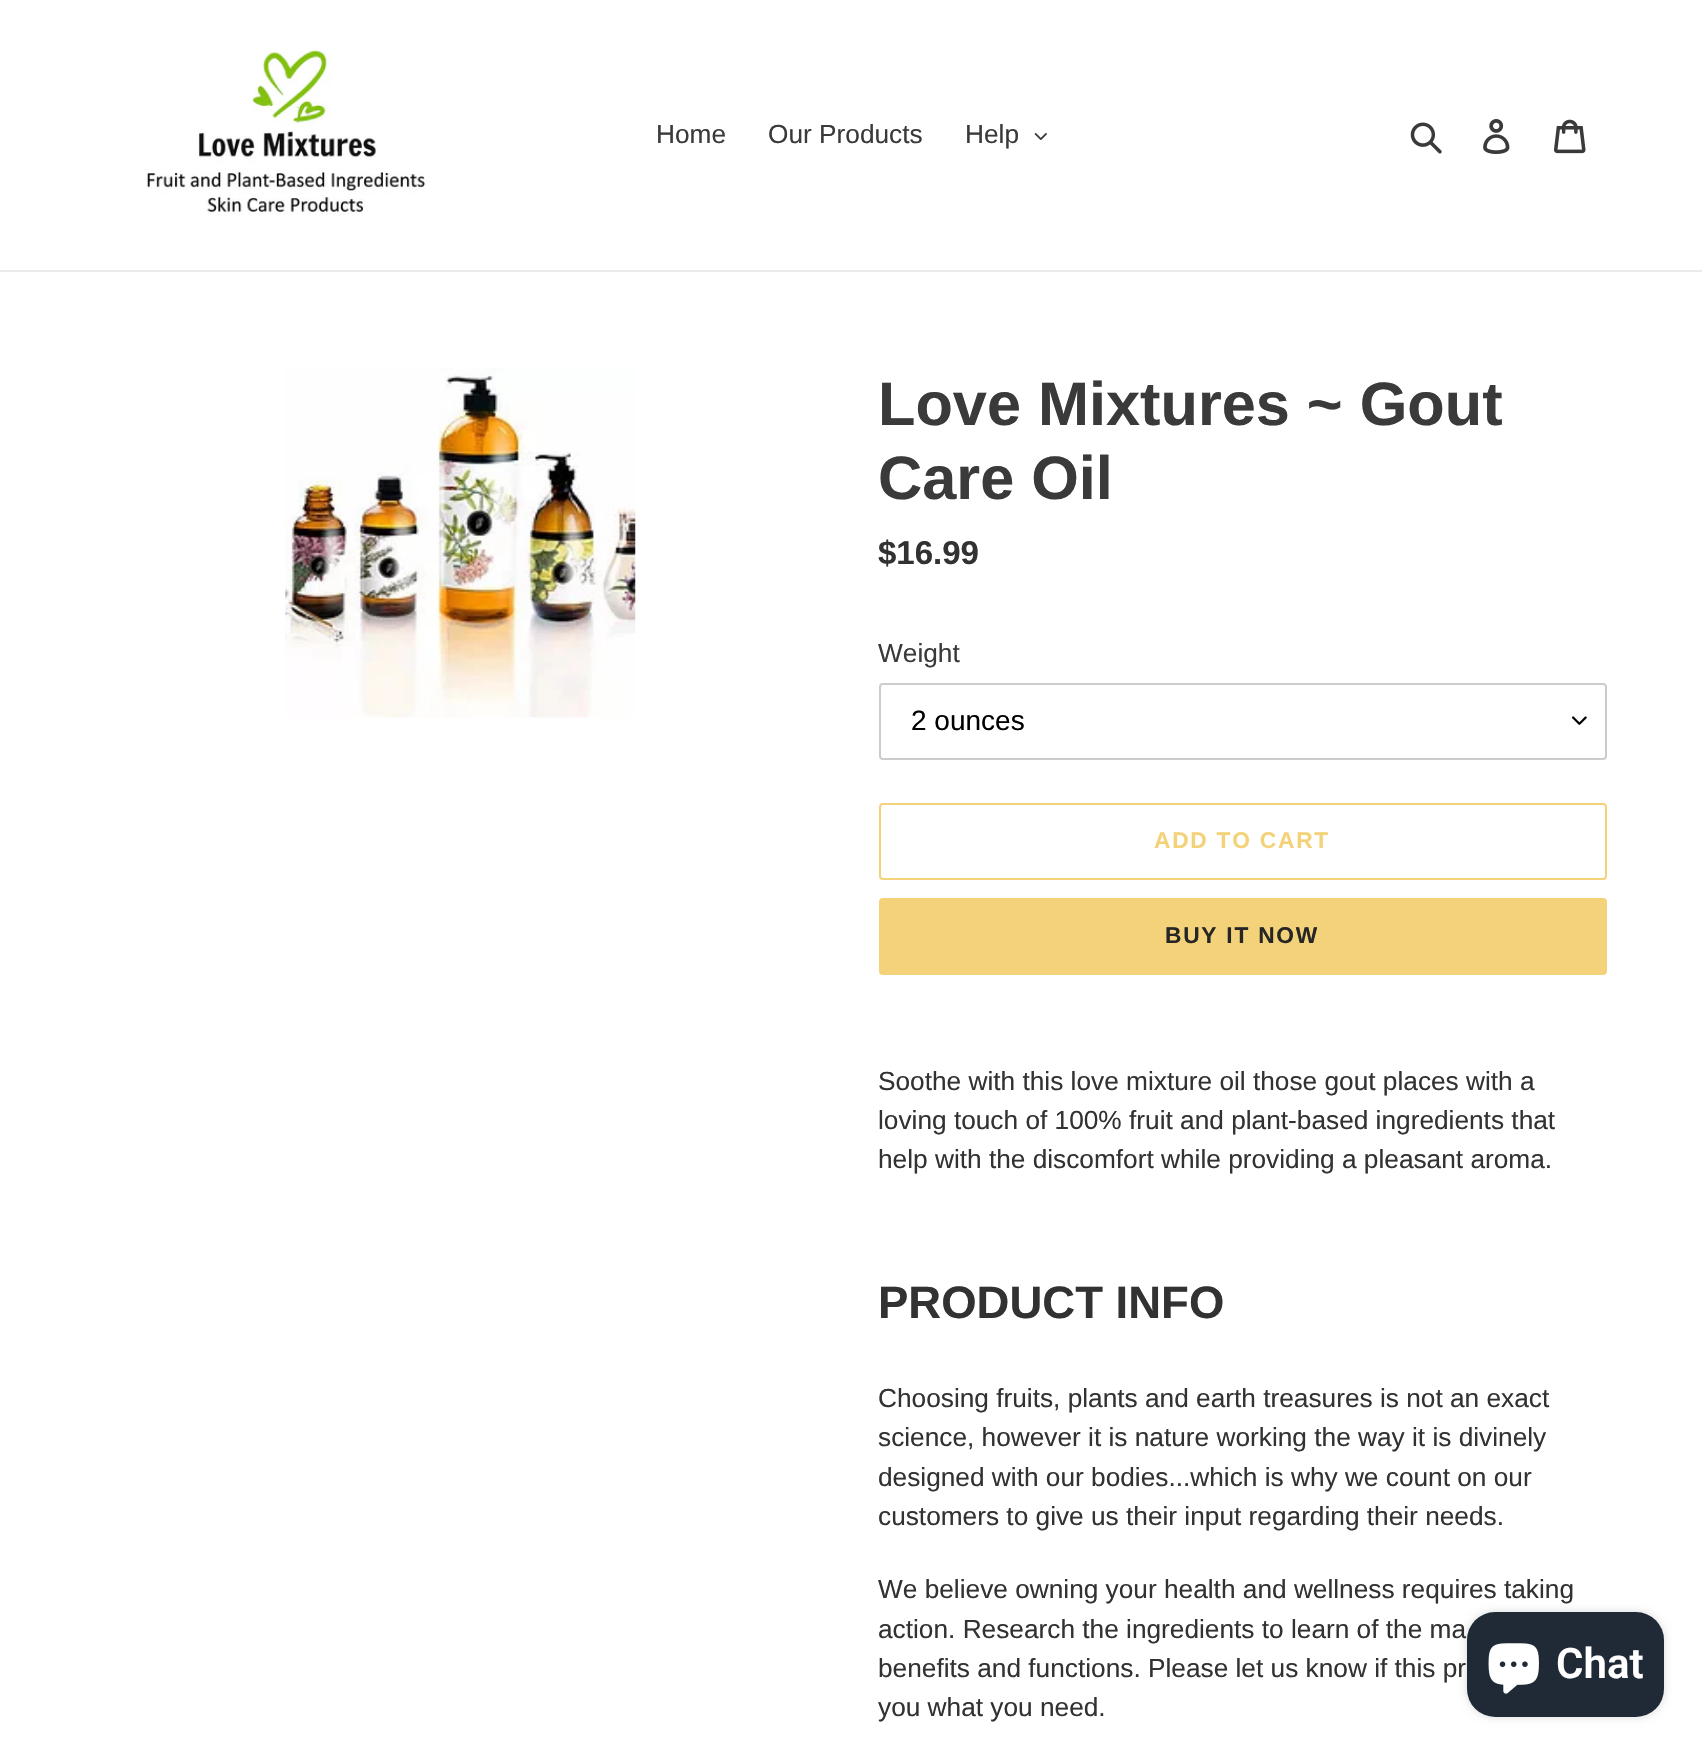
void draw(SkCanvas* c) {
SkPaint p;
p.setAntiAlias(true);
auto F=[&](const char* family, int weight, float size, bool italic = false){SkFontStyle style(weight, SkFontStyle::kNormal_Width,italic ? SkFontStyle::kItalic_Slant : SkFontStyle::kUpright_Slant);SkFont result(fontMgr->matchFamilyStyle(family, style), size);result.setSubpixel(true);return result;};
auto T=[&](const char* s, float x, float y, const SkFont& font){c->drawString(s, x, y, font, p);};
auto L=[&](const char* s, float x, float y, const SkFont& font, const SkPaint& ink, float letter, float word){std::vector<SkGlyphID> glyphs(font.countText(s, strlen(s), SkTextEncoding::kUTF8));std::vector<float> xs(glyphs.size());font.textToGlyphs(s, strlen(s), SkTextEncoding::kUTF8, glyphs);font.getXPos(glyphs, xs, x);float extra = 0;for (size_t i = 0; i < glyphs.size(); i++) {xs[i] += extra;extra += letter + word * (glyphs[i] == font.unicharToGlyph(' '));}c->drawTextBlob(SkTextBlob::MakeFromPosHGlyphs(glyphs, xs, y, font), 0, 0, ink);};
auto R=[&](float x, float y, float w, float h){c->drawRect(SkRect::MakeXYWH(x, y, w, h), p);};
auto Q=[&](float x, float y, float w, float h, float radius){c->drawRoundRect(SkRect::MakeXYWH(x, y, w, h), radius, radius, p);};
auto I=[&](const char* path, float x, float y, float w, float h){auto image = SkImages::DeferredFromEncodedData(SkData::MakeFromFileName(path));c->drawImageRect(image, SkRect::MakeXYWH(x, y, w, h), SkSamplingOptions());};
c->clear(0xffffffff);
p.setColor(0xffebebeb);
R(0,270,1702,2);
I("1.png",146,45,281,170);
auto f1 = F("Liberation Sans",400,26.25);
p.setColor(0xff3a3a3a);
T("Home",656,143,f1);
T("Our Products",768,143,f1);
T("Help",965,143,f1);
I("2.png",1034,133,13,7);
I("3.png",1410,122,32,32);
I("4.png",1483,119,27,35);
I("5.png",1554,119,32,35);
I("6.png",285,368,351,350);
auto f2 = F("Liberation Sans",700,61.25);
T("Love Mixtures ~ Gout",878,425,f2);
T("Care Oil",878,499,f2);
auto f3 = F("Liberation Sans",700,33);
p.setColor(0xff333232);
T("$16.99",878,564,f3);
p.setColor(0xff3a3a3a);
T("Weight",878,662,f1);
I("7.png",1572,716,15,9);
p.setStroke(true);
p.setStrokeWidth(2);
p.setColor(0xffcccccc);
c->drawRoundRect(SkRect::MakeXYWH(880,684,726,75),3,3,p);
auto f4 = F("Liberation Sans",400,28);
p.setStroke(false);
p.setColor(0xff000000);
T("2 ounces",911,730,f4);
p.setStroke(true);
p.setColor(0xfff4d27a);
c->drawRoundRect(SkRect::MakeXYWH(880,804,726,75),3,3,p);
auto f5 = F("Liberation Sans",700,22.75);
p.setStroke(false);
L("ADD TO CART",1154,848,f5,p,1.75,0);
Q(879,898,728,77,4);
p.setColor(0xff262626);
L("BUY IT NOW",1165,943,f5,p,1.75,0);
p.setColor(0xff333232);
T("Soothe with this love mixture oil those gout places with a",878,1090,f1);
T("loving touch of 100% fruit and plant-based ingredients that",878,1129,f1);
T("help with the discomfort while providing a pleasant aroma.",878,1168,f1);
auto f6 = F("Liberation Sans",700,45.5);
T("PRODUCT INFO",878,1318,f6);
T("Choosing fruits, plants and earth treasures is not an exact",878,1407,f1);
T("science, however it is nature working the way it is divinely",878,1446,f1);
T("designed with our bodies...which is why we count on our",878,1486,f1);
T("customers to give us their input regarding their needs.",878,1525,f1);
T("We believe owning your health and wellness requires taking",878,1598,f1);
T("action. Research the ingredients to learn of the ma",878,1638,f1);
T("benefits and functions. Please let us know if this pr",878,1677,f1);
T("you what you need.",878,1716,f1);
p.setColor(0x26000000);
p.setMaskFilter(SkMaskFilter::MakeBlur(kNormal_SkBlurStyle, 4.5));
c->drawRoundRect(SkRect::MakeXYWH(1467,1612,197,105),28,28,p);
p.setMaskFilter(nullptr);
p.setColor(0xff202a36);
Q(1467,1612,197,105,28);
I("8.png",1488,1643,51,51);
auto f7 = F("Roboto",600,42);
p.setColor(0xffffffff);
T("Chat",1556,1678,f7);
}
